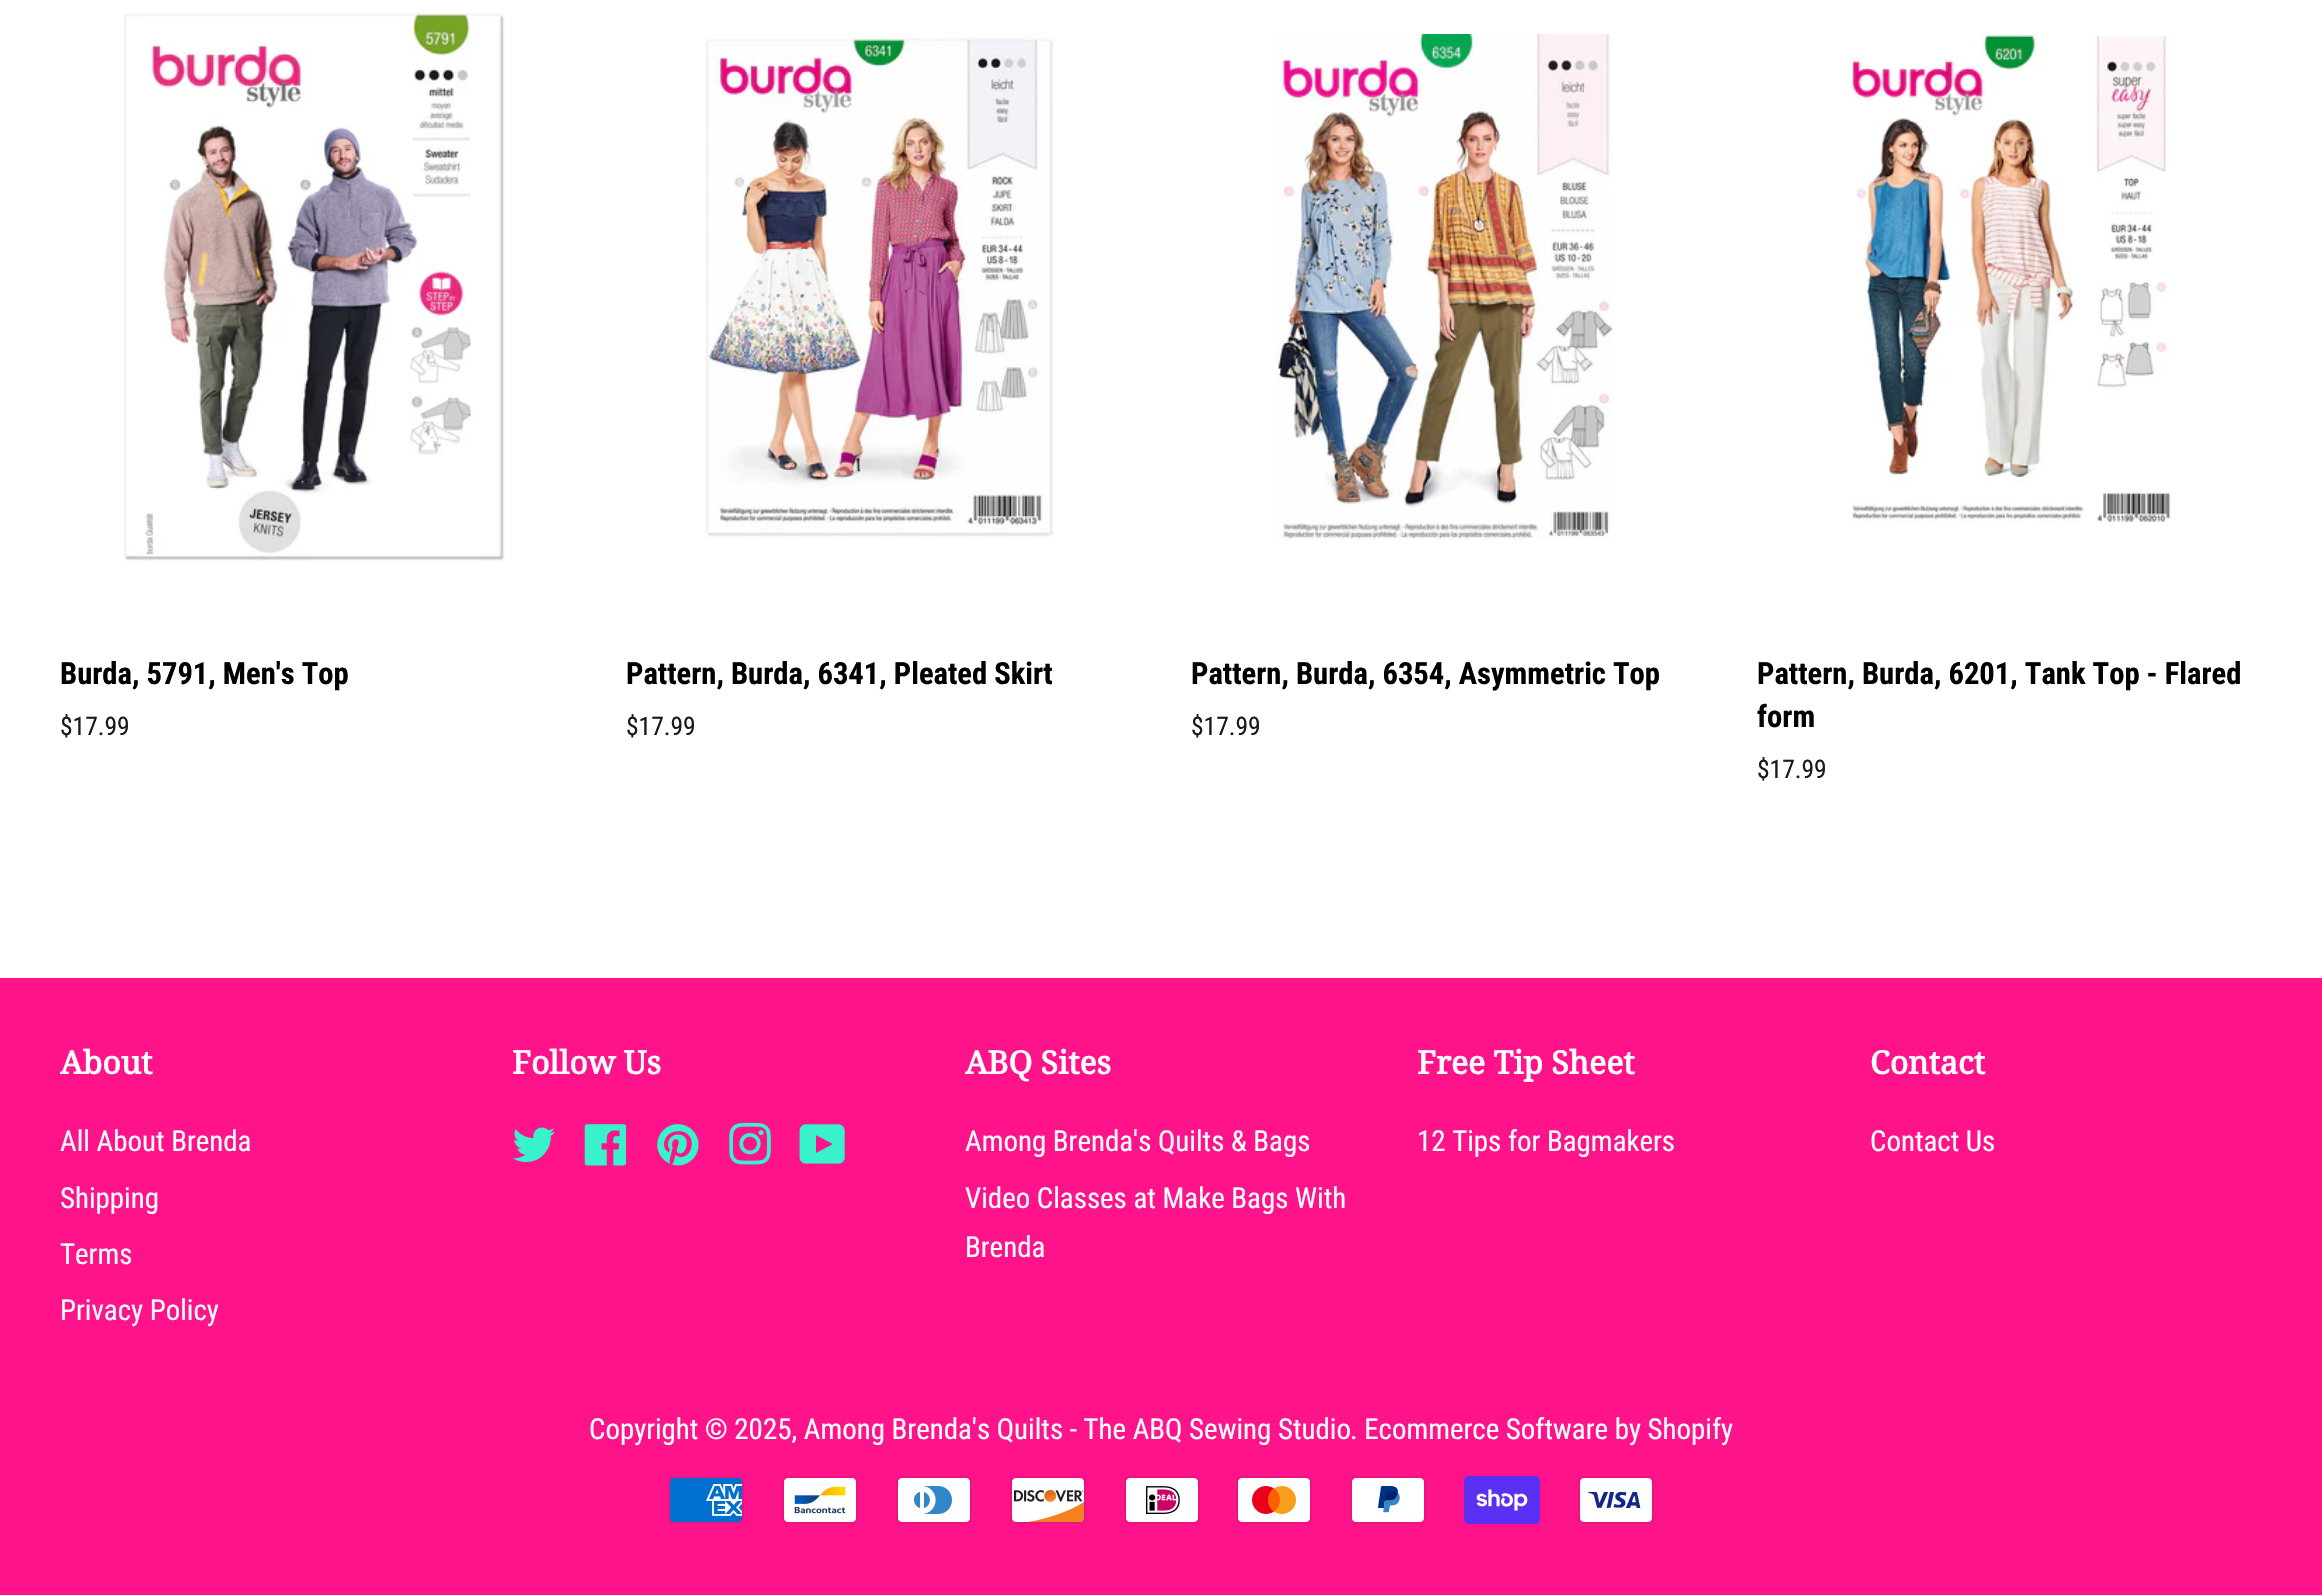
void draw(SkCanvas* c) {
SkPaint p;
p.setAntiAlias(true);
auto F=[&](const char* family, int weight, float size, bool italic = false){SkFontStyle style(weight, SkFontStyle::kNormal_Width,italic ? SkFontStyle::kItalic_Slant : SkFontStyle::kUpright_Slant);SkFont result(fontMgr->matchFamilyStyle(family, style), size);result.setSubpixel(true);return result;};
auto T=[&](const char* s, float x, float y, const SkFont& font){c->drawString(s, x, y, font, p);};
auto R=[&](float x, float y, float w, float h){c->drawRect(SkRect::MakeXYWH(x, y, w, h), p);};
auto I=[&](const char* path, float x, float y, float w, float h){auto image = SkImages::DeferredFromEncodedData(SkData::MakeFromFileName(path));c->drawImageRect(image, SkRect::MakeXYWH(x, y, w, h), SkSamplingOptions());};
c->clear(0xffffffff);
I("1.png",124,13,381,548);
auto f1 = F("Roboto Condensed",700,30.6);
p.setColor(0xff000000);
T("Burda, 5791, Men's Top",60,684,f1);
auto f2 = F("Roboto Condensed",400,25.5);
p.setColor(0xff1a1a1a);
T("$17.99",60,735,f2);
I("2.png",705,34,349,504);
p.setColor(0xff000000);
T("Pattern, Burda, 6341, Pleated Skirt",626,684,f1);
p.setColor(0xff1a1a1a);
T("$17.99",626,735,f2);
I("3.png",1276,34,337,506);
p.setColor(0xff000000);
T("Pattern, Burda, 6354, Asymmetric Top",1191,684,f1);
p.setColor(0xff1a1a1a);
T("$17.99",1191,735,f2);
I("4.png",1849,34,323,489);
p.setColor(0xff000000);
T("Pattern, Burda, 6201, Tank Top - Flared",1757,684,f1);
T("form",1757,727,f1);
p.setColor(0xff1a1a1a);
T("$17.99",1757,778,f2);
p.setColor(0xffff138b);
R(0,978,2322,617);
auto f3 = F("Noto Serif",700,32);
p.setColor(0xffffffff);
T("About",60,1074,f3);
auto f4 = F("Roboto Condensed",400,28.9);
T("All About Brenda",60,1151,f4);
T("Shipping",60,1208,f4);
T("Terms",60,1264,f4);
T("Privacy Policy",60,1320,f4);
T("Follow Us",512,1074,f3);
I("5.png",512,1127,43,35);
I("6.png",584,1124,43,42);
I("7.png",657,1124,42,42);
I("8.png",729,1122,42,43);
I("9.png",799,1124,46,40);
T("ABQ Sites",965,1074,f3);
T("Among Brenda's Quilts & Bags",965,1151,f4);
T("Video Classes at Make Bags With",965,1208,f4);
T("Brenda",965,1257,f4);
T("Free Tip Sheet",1417,1074,f3);
T("12 Tips for Bagmakers",1417,1151,f4);
T("Contact",1870,1074,f3);
T("Contact Us",1870,1151,f4);
T("Copyright © 2025, Among Brenda's Quilts - The ABQ Sewing Studio",589,1439,f4);
T(". Ecommerce Software by Shopify",1350,1439,f4);
I("10.png",668,1476,76,48);
I("11.png",782,1476,76,48);
I("12.png",896,1476,76,48);
I("13.png",1010,1476,76,48);
I("14.png",1124,1476,76,48);
I("15.png",1236,1476,76,48);
I("16.png",1350,1476,76,48);
I("17.png",1464,1476,76,48);
I("18.png",1578,1476,76,48);
}
